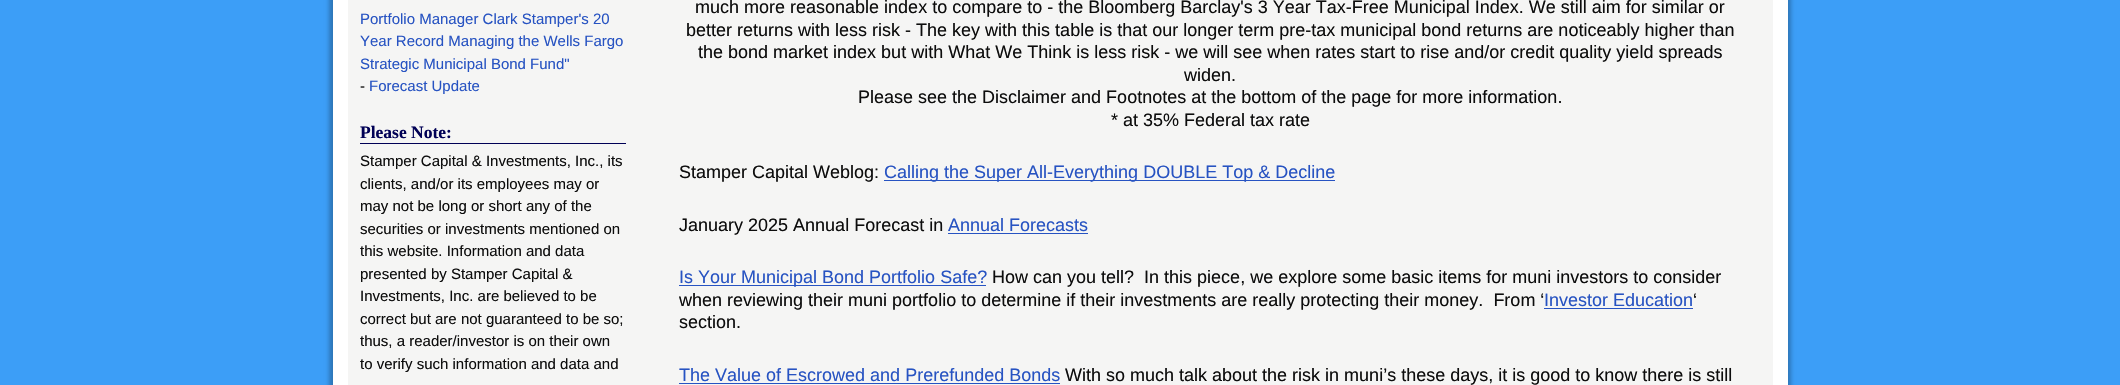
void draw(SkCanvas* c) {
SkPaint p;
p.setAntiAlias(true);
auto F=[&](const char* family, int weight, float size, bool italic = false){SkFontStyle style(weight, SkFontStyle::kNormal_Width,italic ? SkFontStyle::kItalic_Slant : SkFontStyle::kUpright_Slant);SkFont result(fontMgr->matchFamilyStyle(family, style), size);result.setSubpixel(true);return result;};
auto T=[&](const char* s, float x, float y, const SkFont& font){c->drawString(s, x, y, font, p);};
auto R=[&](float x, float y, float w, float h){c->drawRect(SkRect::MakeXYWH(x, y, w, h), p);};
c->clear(0xff3c9ef7);
p.setColor(0x40000000);
p.setMaskFilter(SkMaskFilter::MakeBlur(kNormal_SkBlurStyle, 2));
c->drawRect(SkRect::MakeXYWH(329,-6,1462,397),p);
p.setMaskFilter(nullptr);
p.setColor(0xffffffff);
R(333,0,1455,385);
p.setColor(0xfff5f5f4);
R(348,0,1425,385);
auto f1 = F("Liberation Sans",400,15);
p.setColor(0xff2753c2);
T("Portfolio Manager Clark Stamper's 20",360,24,f1);
T("Year Record Managing the Wells Fargo",360,46,f1);
T("Strategic Municipal Bond Fund\"",360,69,f1);
p.setColor(0xff0d0d0d);
T("-",360,91,f1);
p.setColor(0xff2753c2);
T("Forecast Update",369,91,f1);
p.setColor(0xff000055);
R(360,143,266,1);
auto f2 = F("Liberation Serif",700,17.5);
T("Please Note:",360,138,f2);
p.setColor(0xff0d0d0d);
T("Stamper Capital & Investments, Inc., its",360,166,f1);
T("clients, and/or its employees may or",360,189,f1);
T("may not be long or short any of the",360,211,f1);
T("securities or investments mentioned on",360,234,f1);
T("this website. Information and data",360,256,f1);
T("presented by Stamper Capital &",360,279,f1);
T("Investments, Inc. are believed to be",360,301,f1);
T("correct but are not guaranteed to be so;",360,324,f1);
T("thus, a reader/investor is on their own",360,346,f1);
T("to verify such information and data and",360,369,f1);
auto f3 = F("Liberation Sans",400,18);
T("much more reasonable index to compare to - the Bloomberg Barclay's 3 Year Tax-Free Municipal Index. We still aim for similar or",695,13,f3);
T("better returns with less risk - The key with this table is that our longer term pre-tax municipal bond returns are noticeably higher than",686,36,f3);
T("the bond market index but with What We Think is less risk - we will see when rates start to rise and/or credit quality yield spreads",698,58,f3);
T("widen.",1184,81,f3);
T("Please see the Disclaimer and Footnotes at the bottom of the page for more information.",858,103,f3);
T("* at 35% Federal tax rate",1111,126,f3);
T("Stamper Capital Weblog:",679,178,f3);
p.setColor(0xff2753c2);
R(884,180,451,1);
T("Calling the Super All-Everything DOUBLE Top & Decline",884,178,f3);
p.setColor(0xff0d0d0d);
T("January 2025 Annual Forecast in",679,231,f3);
p.setColor(0xff2753c2);
T("Annual Forecasts",948,231,f3);
R(948,233,140,1);
R(679,285,307,1);
T("Is Your Municipal Bond Portfolio Safe?",679,283,f3);
p.setColor(0xff0d0d0d);
T("How can you tell?  In this piece, we explore some basic items for muni investors to consider",992,283,f3);
T("when reviewing their muni portfolio to determine if their investments are really protecting their money.  From ‘",679,306,f3);
p.setColor(0xff2753c2);
T("Investor Education",1544,306,f3);
R(1544,308,149,1);
p.setColor(0xff0d0d0d);
T("‘",1693,306,f3);
T("section.",679,328,f3);
p.setColor(0xff2753c2);
T("The Value of Escrowed and Prerefunded Bonds",679,381,f3);
R(679,383,381,1);
p.setColor(0xff0d0d0d);
T("With so much talk about the risk in muni’s these days, it is good to know there is still",1065,381,f3);
}
